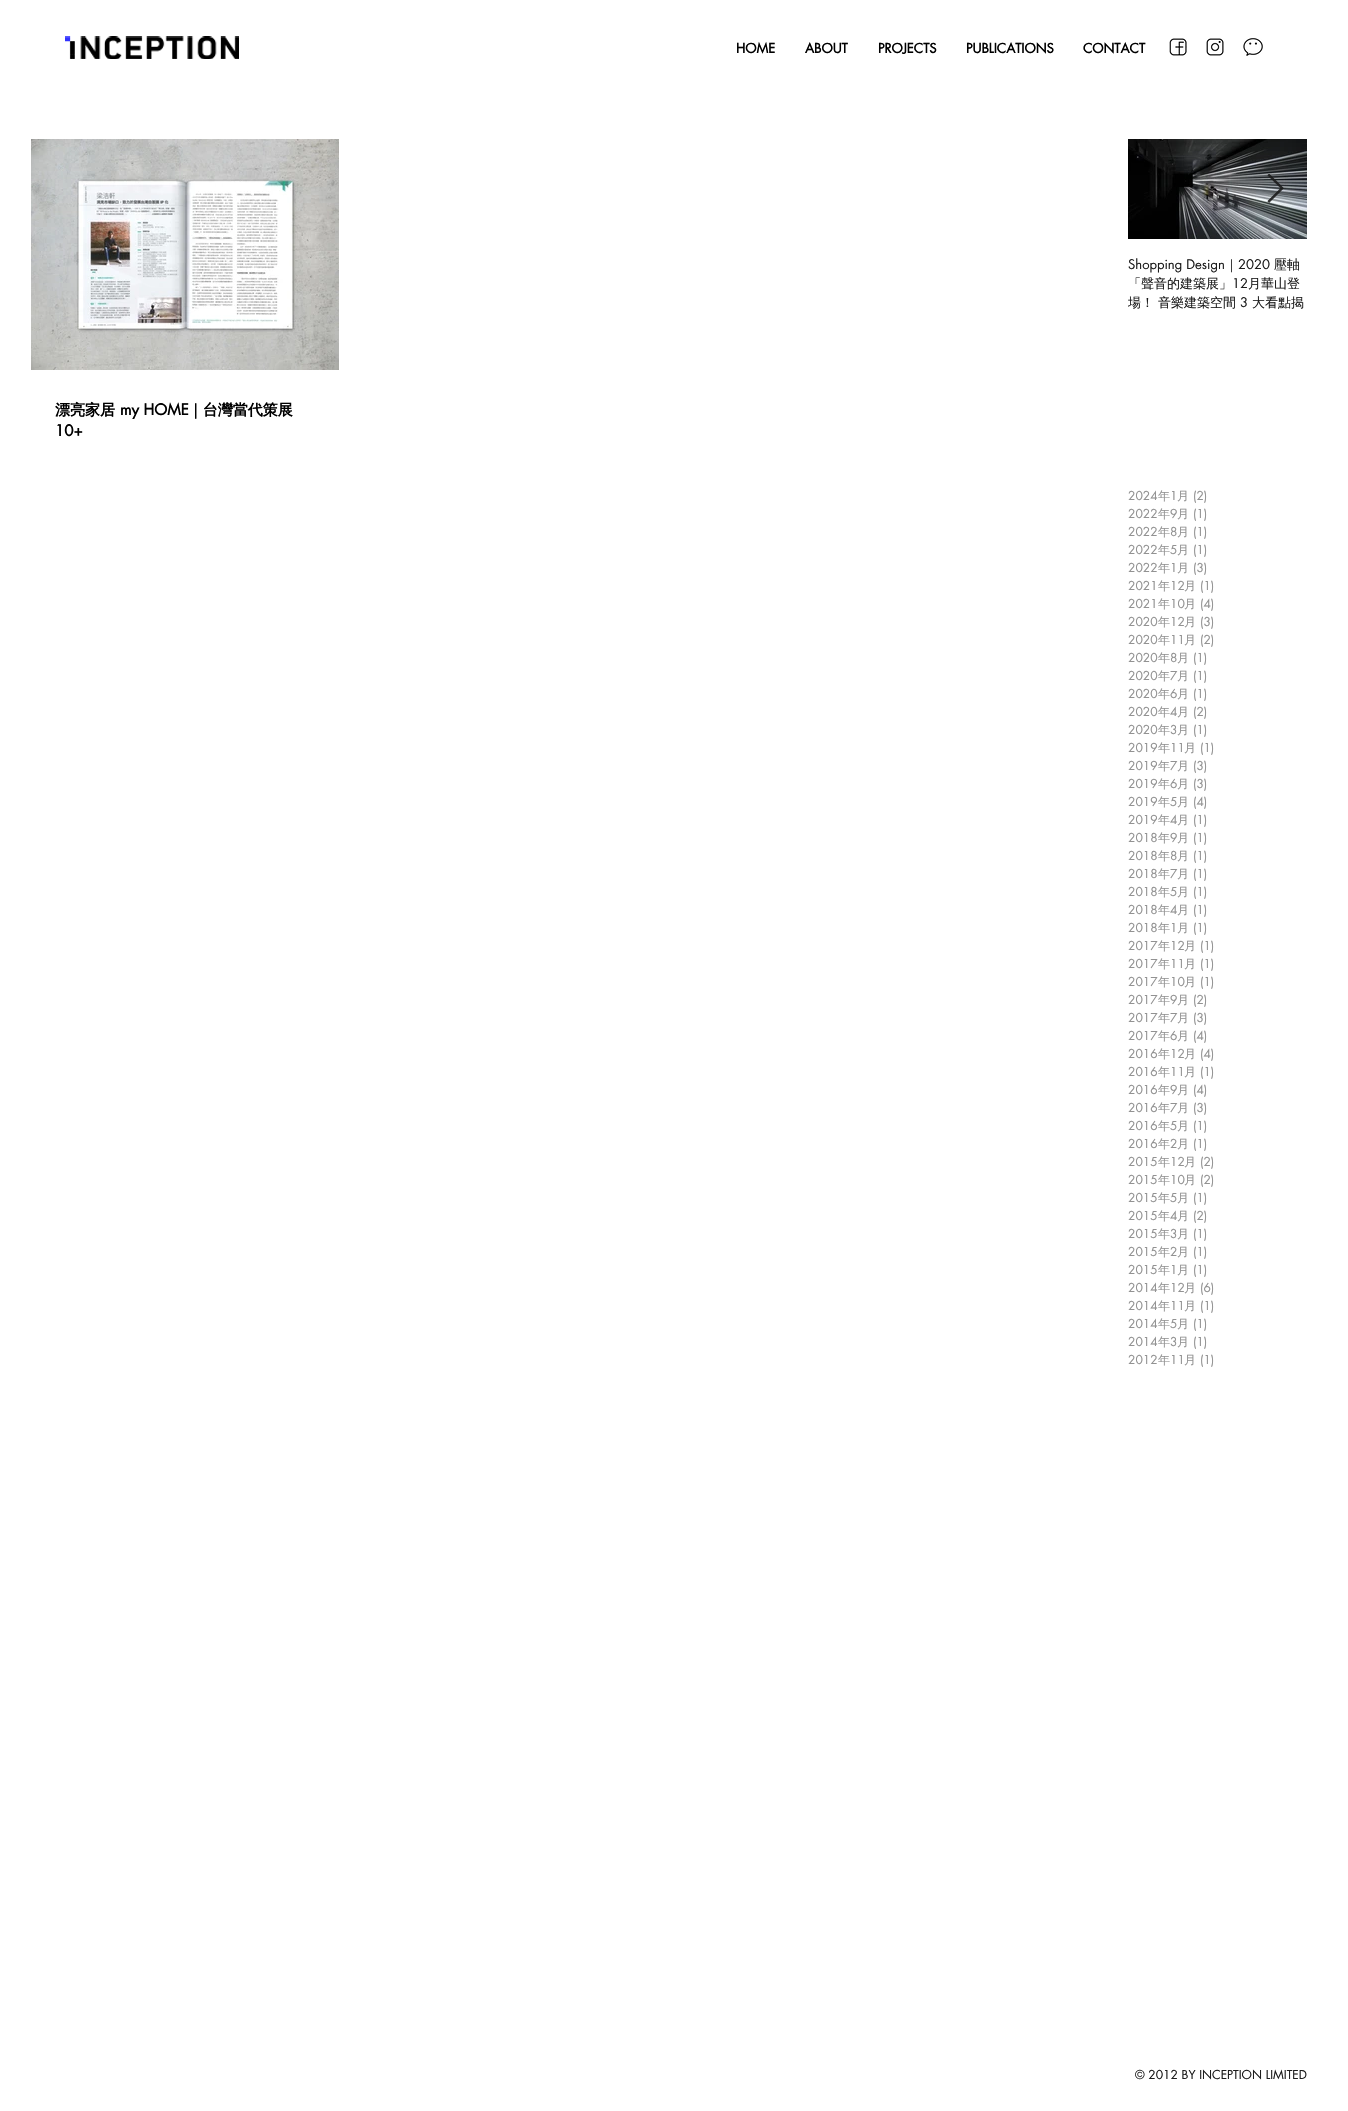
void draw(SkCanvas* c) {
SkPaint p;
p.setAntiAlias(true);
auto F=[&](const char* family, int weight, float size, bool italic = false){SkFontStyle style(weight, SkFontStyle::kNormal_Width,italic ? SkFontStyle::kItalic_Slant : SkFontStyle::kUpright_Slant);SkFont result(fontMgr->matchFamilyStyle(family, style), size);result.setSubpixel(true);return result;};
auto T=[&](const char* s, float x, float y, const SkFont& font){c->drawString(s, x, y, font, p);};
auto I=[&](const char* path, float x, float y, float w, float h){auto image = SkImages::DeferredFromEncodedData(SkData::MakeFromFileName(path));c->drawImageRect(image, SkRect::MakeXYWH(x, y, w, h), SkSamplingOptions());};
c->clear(0xffffffff);
I("1.png",65,36,174,23);
auto f1 = F("futura",700,13);
p.setColor(0xff000000);
T("HOME",736,53,f1);
T("ABOUT",805,53,f1);
T("PROJECTS",878,53,f1);
T("PUBLICATIONS",966,53,f1);
T("CONTACT",1083,53,f1);
I("2.png",1169,38,18,18);
I("3.png",1206,38,18,18);
I("4.png",1243,38,20,18);
I("6.png",1128,139,179,100);
I("5.png",1267,174,17,29);
auto f2 = F("futura",400,13);
p.setColor(0xff1c1c1c);
T("Shopping Design",1128,269,f2);
auto f3 = F("WenQuanYi Zen Hei",500,13);
T("｜",1225,269,f3);
T("2020",1238,269,f2);
T("壓軸",1274,269,f3);
T("「聲音的建築展」",1128,288,f3);
T("12",1232,288,f2);
T("月華山登",1248,288,f3);
T("場！ 音樂建築空間",1128,307,f3);
T("3",1240,307,f2);
T("大看點揭",1252,307,f3);
I("7.png",31,139,308,231);
auto f4 = F("WenQuanYi Zen Hei",700,15);
p.setColor(0xff000000);
T("漂亮家居",55,415,f4);
auto f5 = F("futura",700,15);
T("my HOME",120,415,f5);
T("｜台灣當代策展",188,415,f4);
T("10+",55,436,f5);
auto f6 = F("futura",400,12);
p.setColor(0xff929292);
T("2024",1128,500,f6);
auto f7 = F("WenQuanYi Zen Hei",500,12);
T("年",1158,500,f7);
T("1",1170,500,f6);
T("月",1177,500,f7);
T("(2)",1193,500,f6);
T("2022",1128,518,f6);
T("年",1158,518,f7);
T("9",1170,518,f6);
T("月",1177,518,f7);
T("(1)",1193,518,f6);
T("2022",1128,536,f6);
T("年",1158,536,f7);
T("8",1170,536,f6);
T("月",1177,536,f7);
T("(1)",1193,536,f6);
T("2022",1128,554,f6);
T("年",1158,554,f7);
T("5",1170,554,f6);
T("月",1177,554,f7);
T("(1)",1193,554,f6);
T("2022",1128,572,f6);
T("年",1158,572,f7);
T("1",1170,572,f6);
T("月",1177,572,f7);
T("(3)",1193,572,f6);
T("2021",1128,590,f6);
T("年",1158,590,f7);
T("12",1170,590,f6);
T("月",1184,590,f7);
T("(1)",1200,590,f6);
T("2021",1128,608,f6);
T("年",1158,608,f7);
T("10",1170,608,f6);
T("月",1184,608,f7);
T("(4)",1200,608,f6);
T("2020",1128,626,f6);
T("年",1158,626,f7);
T("12",1170,626,f6);
T("月",1184,626,f7);
T("(3)",1200,626,f6);
T("2020",1128,644,f6);
T("年",1158,644,f7);
T("11",1170,644,f6);
T("月",1184,644,f7);
T("(2)",1200,644,f6);
T("2020",1128,662,f6);
T("年",1158,662,f7);
T("8",1170,662,f6);
T("月",1177,662,f7);
T("(1)",1193,662,f6);
T("2020",1128,680,f6);
T("年",1158,680,f7);
T("7",1170,680,f6);
T("月",1177,680,f7);
T("(1)",1193,680,f6);
T("2020",1128,698,f6);
T("年",1158,698,f7);
T("6",1170,698,f6);
T("月",1177,698,f7);
T("(1)",1193,698,f6);
T("2020",1128,716,f6);
T("年",1158,716,f7);
T("4",1170,716,f6);
T("月",1177,716,f7);
T("(2)",1193,716,f6);
T("2020",1128,734,f6);
T("年",1158,734,f7);
T("3",1170,734,f6);
T("月",1177,734,f7);
T("(1)",1193,734,f6);
T("2019",1128,752,f6);
T("年",1158,752,f7);
T("11",1170,752,f6);
T("月",1184,752,f7);
T("(1)",1200,752,f6);
T("2019",1128,770,f6);
T("年",1158,770,f7);
T("7",1170,770,f6);
T("月",1177,770,f7);
T("(3)",1193,770,f6);
T("2019",1128,788,f6);
T("年",1158,788,f7);
T("6",1170,788,f6);
T("月",1177,788,f7);
T("(3)",1193,788,f6);
T("2019",1128,806,f6);
T("年",1158,806,f7);
T("5",1170,806,f6);
T("月",1177,806,f7);
T("(4)",1193,806,f6);
T("2019",1128,824,f6);
T("年",1158,824,f7);
T("4",1170,824,f6);
T("月",1177,824,f7);
T("(1)",1193,824,f6);
T("2018",1128,842,f6);
T("年",1158,842,f7);
T("9",1170,842,f6);
T("月",1177,842,f7);
T("(1)",1193,842,f6);
T("2018",1128,860,f6);
T("年",1158,860,f7);
T("8",1170,860,f6);
T("月",1177,860,f7);
T("(1)",1193,860,f6);
T("2018",1128,878,f6);
T("年",1158,878,f7);
T("7",1170,878,f6);
T("月",1177,878,f7);
T("(1)",1193,878,f6);
T("2018",1128,896,f6);
T("年",1158,896,f7);
T("5",1170,896,f6);
T("月",1177,896,f7);
T("(1)",1193,896,f6);
T("2018",1128,914,f6);
T("年",1158,914,f7);
T("4",1170,914,f6);
T("月",1177,914,f7);
T("(1)",1193,914,f6);
T("2018",1128,932,f6);
T("年",1158,932,f7);
T("1",1170,932,f6);
T("月",1177,932,f7);
T("(1)",1193,932,f6);
T("2017",1128,950,f6);
T("年",1158,950,f7);
T("12",1170,950,f6);
T("月",1184,950,f7);
T("(1)",1200,950,f6);
T("2017",1128,968,f6);
T("年",1158,968,f7);
T("11",1170,968,f6);
T("月",1184,968,f7);
T("(1)",1200,968,f6);
T("2017",1128,986,f6);
T("年",1158,986,f7);
T("10",1170,986,f6);
T("月",1184,986,f7);
T("(1)",1200,986,f6);
T("2017",1128,1004,f6);
T("年",1158,1004,f7);
T("9",1170,1004,f6);
T("月",1177,1004,f7);
T("(2)",1193,1004,f6);
T("2017",1128,1022,f6);
T("年",1158,1022,f7);
T("7",1170,1022,f6);
T("月",1177,1022,f7);
T("(3)",1193,1022,f6);
T("2017",1128,1040,f6);
T("年",1158,1040,f7);
T("6",1170,1040,f6);
T("月",1177,1040,f7);
T("(4)",1193,1040,f6);
T("2016",1128,1058,f6);
T("年",1158,1058,f7);
T("12",1170,1058,f6);
T("月",1184,1058,f7);
T("(4)",1200,1058,f6);
T("2016",1128,1076,f6);
T("年",1158,1076,f7);
T("11",1170,1076,f6);
T("月",1184,1076,f7);
T("(1)",1200,1076,f6);
T("2016",1128,1094,f6);
T("年",1158,1094,f7);
T("9",1170,1094,f6);
T("月",1177,1094,f7);
T("(4)",1193,1094,f6);
T("2016",1128,1112,f6);
T("年",1158,1112,f7);
T("7",1170,1112,f6);
T("月",1177,1112,f7);
T("(3)",1193,1112,f6);
T("2016",1128,1130,f6);
T("年",1158,1130,f7);
T("5",1170,1130,f6);
T("月",1177,1130,f7);
T("(1)",1193,1130,f6);
T("2016",1128,1148,f6);
T("年",1158,1148,f7);
T("2",1170,1148,f6);
T("月",1177,1148,f7);
T("(1)",1193,1148,f6);
T("2015",1128,1166,f6);
T("年",1158,1166,f7);
T("12",1170,1166,f6);
T("月",1184,1166,f7);
T("(2)",1200,1166,f6);
T("2015",1128,1184,f6);
T("年",1158,1184,f7);
T("10",1170,1184,f6);
T("月",1184,1184,f7);
T("(2)",1200,1184,f6);
T("2015",1128,1202,f6);
T("年",1158,1202,f7);
T("5",1170,1202,f6);
T("月",1177,1202,f7);
T("(1)",1193,1202,f6);
T("2015",1128,1220,f6);
T("年",1158,1220,f7);
T("4",1170,1220,f6);
T("月",1177,1220,f7);
T("(2)",1193,1220,f6);
T("2015",1128,1238,f6);
T("年",1158,1238,f7);
T("3",1170,1238,f6);
T("月",1177,1238,f7);
T("(1)",1193,1238,f6);
T("2015",1128,1256,f6);
T("年",1158,1256,f7);
T("2",1170,1256,f6);
T("月",1177,1256,f7);
T("(1)",1193,1256,f6);
T("2015",1128,1274,f6);
T("年",1158,1274,f7);
T("1",1170,1274,f6);
T("月",1177,1274,f7);
T("(1)",1193,1274,f6);
T("2014",1128,1292,f6);
T("年",1158,1292,f7);
T("12",1170,1292,f6);
T("月",1184,1292,f7);
T("(6)",1200,1292,f6);
T("2014",1128,1310,f6);
T("年",1158,1310,f7);
T("11",1170,1310,f6);
T("月",1184,1310,f7);
T("(1)",1200,1310,f6);
T("2014",1128,1328,f6);
T("年",1158,1328,f7);
T("5",1170,1328,f6);
T("月",1177,1328,f7);
T("(1)",1193,1328,f6);
T("2014",1128,1346,f6);
T("年",1158,1346,f7);
T("3",1170,1346,f6);
T("月",1177,1346,f7);
T("(1)",1193,1346,f6);
T("2012",1128,1364,f6);
T("年",1158,1364,f7);
T("11",1170,1364,f6);
T("月",1184,1364,f7);
T("(1)",1200,1364,f6);
p.setColor(0xff1c1c1c);
T("© 2012 BY INCEPTION LIMITED",1135,2079,f6);
}
